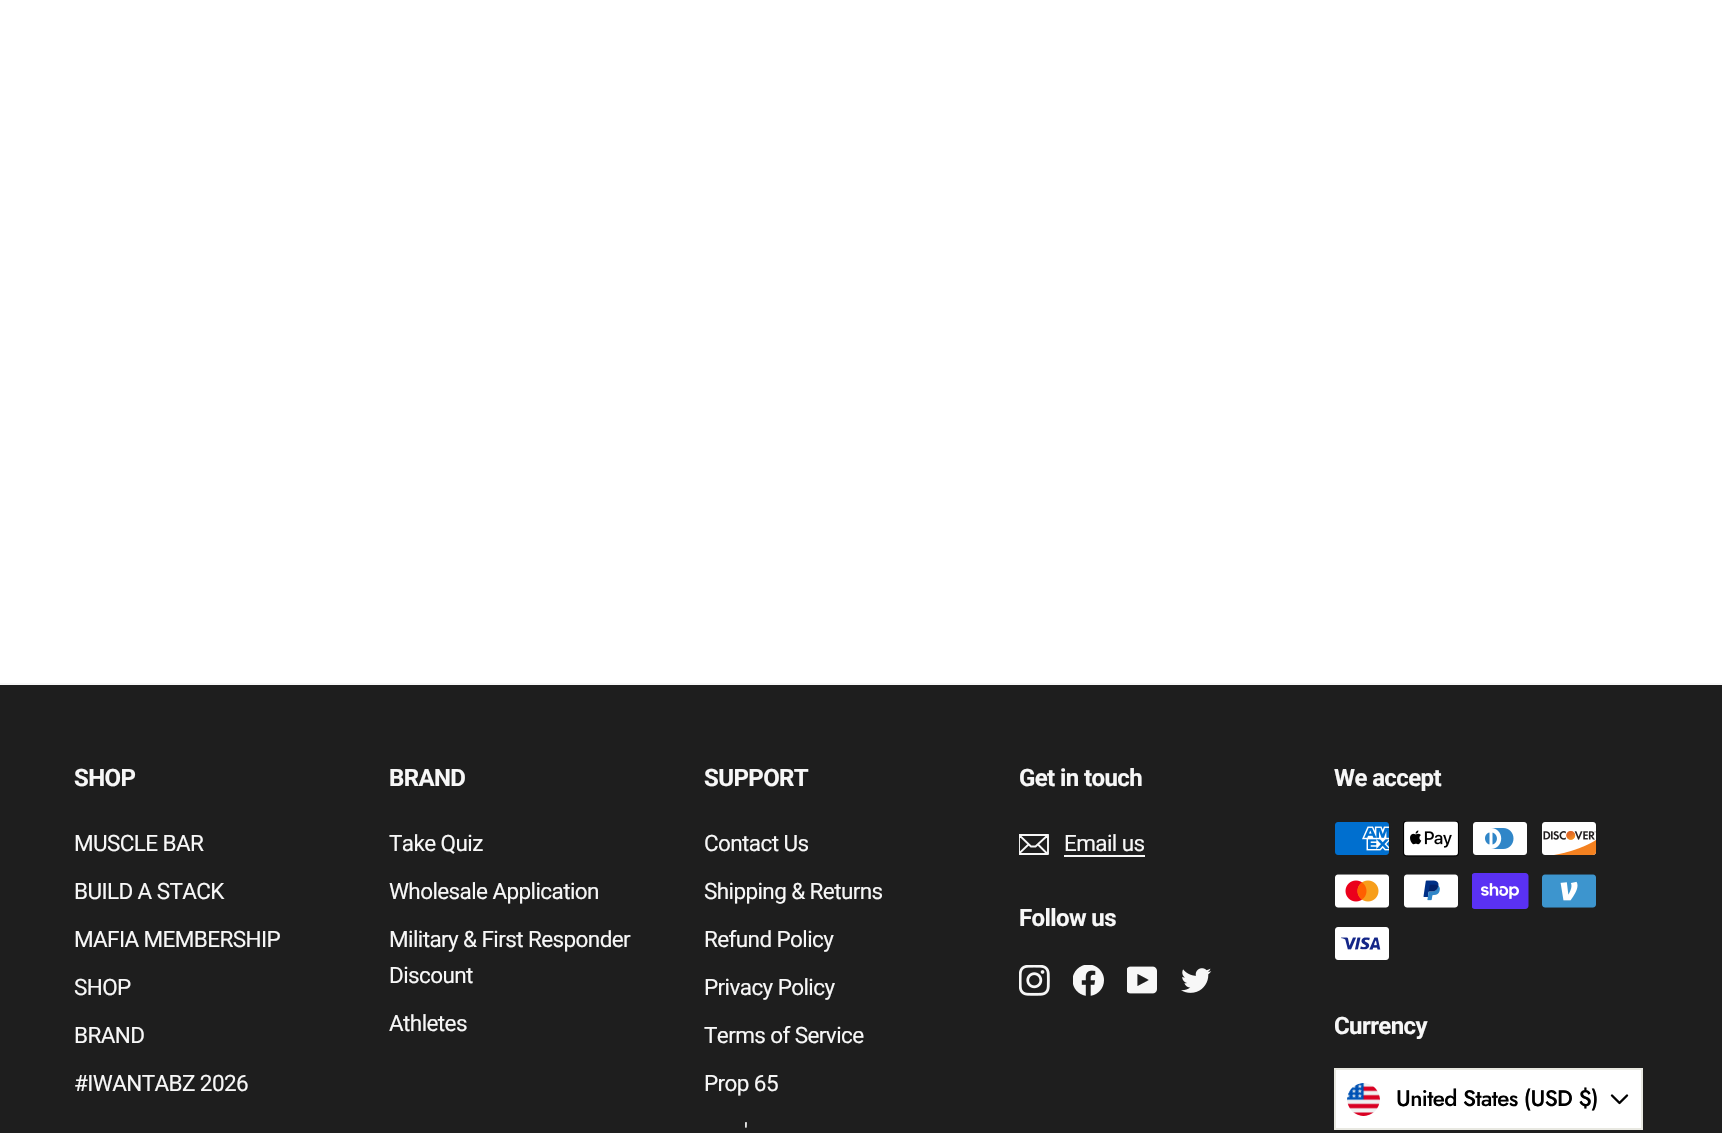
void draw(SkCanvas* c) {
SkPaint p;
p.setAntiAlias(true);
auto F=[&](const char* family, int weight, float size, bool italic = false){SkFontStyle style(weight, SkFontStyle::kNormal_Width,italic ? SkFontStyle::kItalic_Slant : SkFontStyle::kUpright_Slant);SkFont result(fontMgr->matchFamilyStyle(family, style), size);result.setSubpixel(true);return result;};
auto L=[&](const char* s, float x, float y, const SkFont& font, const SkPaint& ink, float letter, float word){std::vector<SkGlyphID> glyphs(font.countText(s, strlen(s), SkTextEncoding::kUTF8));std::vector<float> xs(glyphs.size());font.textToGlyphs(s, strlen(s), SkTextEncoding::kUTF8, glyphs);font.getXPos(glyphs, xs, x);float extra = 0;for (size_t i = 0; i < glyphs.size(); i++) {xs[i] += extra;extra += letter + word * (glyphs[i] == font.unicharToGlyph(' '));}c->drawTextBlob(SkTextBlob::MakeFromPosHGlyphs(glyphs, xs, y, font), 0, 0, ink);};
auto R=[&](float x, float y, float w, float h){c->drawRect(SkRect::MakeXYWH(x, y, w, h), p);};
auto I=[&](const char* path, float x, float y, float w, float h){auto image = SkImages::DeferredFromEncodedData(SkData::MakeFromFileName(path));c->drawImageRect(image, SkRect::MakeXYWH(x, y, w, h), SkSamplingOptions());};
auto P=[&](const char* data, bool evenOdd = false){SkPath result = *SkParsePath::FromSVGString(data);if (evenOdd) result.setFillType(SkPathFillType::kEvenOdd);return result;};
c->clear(0xffffffff);
p.setColor(0xff1e1e1e);
R(0,685,1722,448);
p.setColor(0xfff7f7f7);
R(0,683,1722,2);
auto f1 = F("Roboto",700,24);
L("SHOP",74,786,f1,p,-.6,0);
auto f2 = F("Roboto",400,22.5);
L("MUSCLE BAR",74,851,f2,p,-.6,0);
L("BUILD A STACK",74,899,f2,p,-.6,0);
L("MAFIA MEMBERSHIP",74,947,f2,p,-.6,0);
L("SHOP",74,995,f2,p,-.6,0);
L("BRAND",74,1043,f2,p,-.6,0);
L("#IWANTABZ 2026",74,1091,f2,p,-.6,0);
L("BRAND",389,786,f1,p,-.6,0);
L("Take Quiz",389,851,f2,p,-.6,0);
L("Wholesale Application",389,899,f2,p,-.6,0);
L("Military & First Responder",389,947,f2,p,-.6,0);
L("Discount",389,983,f2,p,-.6,0);
L("Athletes",389,1031,f2,p,-.6,0);
L("SUPPORT",704,786,f1,p,-.6,0);
L("Contact Us",704,851,f2,p,-.6,0);
L("Shipping & Returns",704,899,f2,p,-.6,0);
L("Refund Policy",704,947,f2,p,-.6,0);
L("Privacy Policy",704,995,f2,p,-.6,0);
L("Terms of Service",704,1043,f2,p,-.6,0);
L("Prop 65",704,1091,f2,p,-.6,0);
L("'",744,1139,f2,p,-.6,0);
L("Get in touch",1019,786,f1,p,-.6,0);
c->save();
c->clipRect(SkRect::MakeXYWH(1019,830,30,30));
p.setStroke(true);
p.setStrokeWidth(1.9);
p.setStrokeCap(SkPaint::kRound_Cap);
p.setStrokeJoin(SkPaint::kRound_Join);
c->drawPath(P("M1048 854h-29v-19h29zm-29-19l12 11.5h4.5l12.5-11.5m-19.5 9.5l-9.5 9m28.5 .5l-9.5-9.5"),p);
c->restore();
p.setStroke(false);
L("Email us",1064,851,f2,p,-.6,0);
R(1064,855,81,2);
L("Follow us",1019,926,f1,p,-.6,0);
I("1.png",1019,965,31,31);
I("2.png",1073,965,31,31);
I("3.png",1127,966,30,28);
I("4.png",1181,968,31,25);
L("We accept",1334,786,f1,p,-.6,0);
I("5.png",1335,822,54,33);
I("6.png",1403,821,56,36);
I("7.png",1473,822,54,33);
I("8.png",1542,822,55,33);
I("9.png",1335,874,54,34);
I("10.png",1404,874,54,34);
I("11.png",1472,873,57,36);
I("12.png",1542,874,54,34);
I("13.png",1335,927,54,33);
L("Currency",1334,1034,f1,p,-.6,0);
p.setColor(0xffffffff);
c->drawRect(SkRect::MakeXYWH(1335,1069,307,60),p);
p.setStroke(true);
p.setStrokeWidth(2);
p.setStrokeCap(SkPaint::kButt_Cap);
p.setStrokeJoin(SkPaint::kMiter_Join);
p.setColor(0xffe8e8e1);
c->drawRect(SkRect::MakeXYWH(1335,1069,307,60),p);
I("14.png",1347,1083,33,33);
auto f3 = F("Jost",500,22.5);
p.setStroke(false);
p.setColor(0xff000000);
L("United States (USD $)",1396,1106,f3,p,-.6,0);
p.setStroke(true);
p.setStrokeWidth(2.4);
p.setStrokeCap(SkPaint::kRound_Cap);
p.setStrokeJoin(SkPaint::kRound_Join);
c->drawPath(P("M1612 1095.5l7.5 7.5l7.5-7.5"),p);
}
